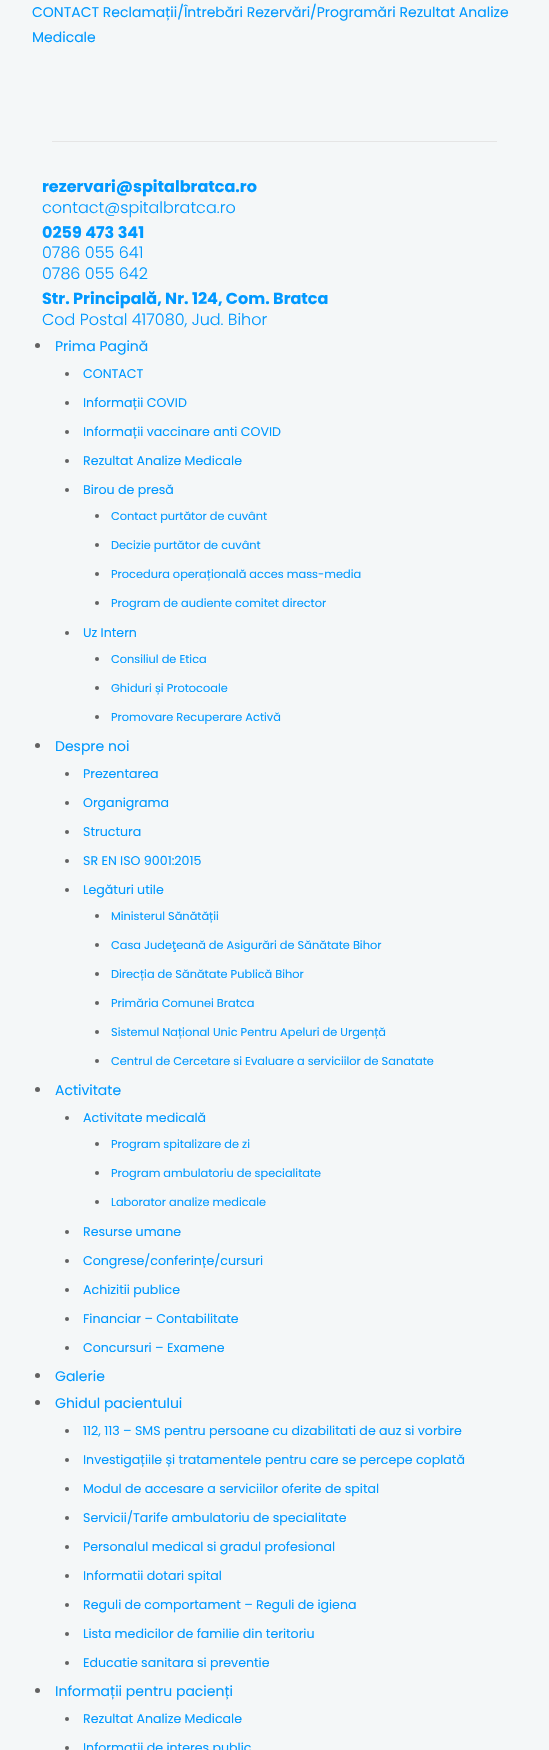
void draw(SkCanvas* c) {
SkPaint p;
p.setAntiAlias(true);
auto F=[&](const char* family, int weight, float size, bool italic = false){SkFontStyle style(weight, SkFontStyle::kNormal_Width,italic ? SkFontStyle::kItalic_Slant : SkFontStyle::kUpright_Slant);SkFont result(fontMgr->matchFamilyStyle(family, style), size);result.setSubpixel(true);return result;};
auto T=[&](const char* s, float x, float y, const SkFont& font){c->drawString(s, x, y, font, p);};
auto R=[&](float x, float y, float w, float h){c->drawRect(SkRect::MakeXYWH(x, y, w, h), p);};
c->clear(0xfff4f7f8);
auto f1 = F("Poppins",400,14);
p.setColor(0xff0099ff);
T("CONTACT Reclamații/Întrebări Rezervări/Programări Rezultat Analize",32,17,f1);
T("Medicale",32,42,f1);
p.setColor(0xffe5e5e5);
R(52,141,445,1);
auto f2 = F("Poppins",700,16);
p.setColor(0xff0099ff);
T("rezervari@spitalbratca.ro",42,192,f2);
auto f3 = F("Poppins",300,16);
T("contact@spitalbratca.ro",42,213,f3);
T("0259 473 341",42,238,f2);
T("0786 055 641",42,258,f3);
T("0786 055 642",42,279,f3);
T("Str. Principală, Nr. 124, Com. Bratca",42,304,f2);
T("Cod Postal 417080, Jud. Bihor",42,325,f3);
p.setColor(0xff626262);
c->drawCircle(37.5,345.5,2.5,p);
p.setColor(0xff0099ff);
T("Prima Pagină",55,351,f1);
p.setColor(0xff626262);
c->drawCircle(67,374,2,p);
auto f4 = F("Poppins",400,12.6);
p.setColor(0xff0099ff);
T("CONTACT",83,378,f4);
p.setColor(0xff626262);
c->drawCircle(67,403,2,p);
p.setColor(0xff0099ff);
T("Informații COVID",83,407,f4);
p.setColor(0xff626262);
c->drawCircle(67,432,2,p);
p.setColor(0xff0099ff);
T("Informații vaccinare anti COVID",83,436,f4);
p.setColor(0xff626262);
c->drawCircle(67,461,2,p);
p.setColor(0xff0099ff);
T("Rezultat Analize Medicale",83,465,f4);
p.setColor(0xff626262);
c->drawCircle(67,490,2,p);
p.setColor(0xff0099ff);
T("Birou de presă",83,494,f4);
p.setColor(0xff626262);
c->drawCircle(97,516,2,p);
auto f5 = F("Poppins",400,11.35);
p.setColor(0xff0099ff);
T("Contact purtător de cuvânt",111,520,f5);
p.setColor(0xff626262);
c->drawCircle(97,545,2,p);
p.setColor(0xff0099ff);
T("Decizie purtător de cuvânt",111,549,f5);
p.setColor(0xff626262);
c->drawCircle(97,574,2,p);
p.setColor(0xff0099ff);
T("Procedura operațională acces mass-media",111,578,f5);
p.setColor(0xff626262);
c->drawCircle(97,603,2,p);
p.setColor(0xff0099ff);
T("Program de audiente comitet director",111,607,f5);
p.setColor(0xff626262);
c->drawCircle(67,633,2,p);
p.setColor(0xff0099ff);
T("Uz Intern",83,637,f4);
p.setColor(0xff626262);
c->drawCircle(97,659,2,p);
p.setColor(0xff0099ff);
T("Consiliul de Etica",111,663,f5);
p.setColor(0xff626262);
c->drawCircle(97,688,2,p);
p.setColor(0xff0099ff);
T("Ghiduri și Protocoale",111,692,f5);
p.setColor(0xff626262);
c->drawCircle(97,717,2,p);
p.setColor(0xff0099ff);
T("Promovare Recuperare Activă",111,721,f5);
p.setColor(0xff626262);
c->drawCircle(37.5,745.5,2.5,p);
p.setColor(0xff0099ff);
T("Despre noi",55,751,f1);
p.setColor(0xff626262);
c->drawCircle(67,774,2,p);
p.setColor(0xff0099ff);
T("Prezentarea",83,778,f4);
p.setColor(0xff626262);
c->drawCircle(67,803,2,p);
p.setColor(0xff0099ff);
T("Organigrama",83,807,f4);
p.setColor(0xff626262);
c->drawCircle(67,832,2,p);
p.setColor(0xff0099ff);
T("Structura",83,836,f4);
p.setColor(0xff626262);
c->drawCircle(67,861,2,p);
p.setColor(0xff0099ff);
T("SR EN ISO 9001:2015",83,865,f4);
p.setColor(0xff626262);
c->drawCircle(67,890,2,p);
p.setColor(0xff0099ff);
T("Legături utile",83,894,f4);
p.setColor(0xff626262);
c->drawCircle(97,916,2,p);
p.setColor(0xff0099ff);
T("Ministerul Sănătății",111,920,f5);
p.setColor(0xff626262);
c->drawCircle(97,945,2,p);
p.setColor(0xff0099ff);
T("Casa Judeţeană de Asigurări de Sănătate Bihor",111,949,f5);
p.setColor(0xff626262);
c->drawCircle(97,974,2,p);
p.setColor(0xff0099ff);
T("Direcția de Sănătate Publică Bihor",111,978,f5);
p.setColor(0xff626262);
c->drawCircle(97,1003,2,p);
p.setColor(0xff0099ff);
T("Primăria Comunei Bratca",111,1007,f5);
p.setColor(0xff626262);
c->drawCircle(97,1032,2,p);
p.setColor(0xff0099ff);
T("Sistemul Național Unic Pentru Apeluri de Urgență",111,1036,f5);
p.setColor(0xff626262);
c->drawCircle(97,1061,2,p);
p.setColor(0xff0099ff);
T("Centrul de Cercetare si Evaluare a serviciilor de Sanatate",111,1065,f5);
p.setColor(0xff626262);
c->drawCircle(37.5,1089.5,2.5,p);
p.setColor(0xff0099ff);
T("Activitate",55,1095,f1);
p.setColor(0xff626262);
c->drawCircle(67,1118,2,p);
p.setColor(0xff0099ff);
T("Activitate medicală",83,1122,f4);
p.setColor(0xff626262);
c->drawCircle(97,1144,2,p);
p.setColor(0xff0099ff);
T("Program spitalizare de zi",111,1148,f5);
p.setColor(0xff626262);
c->drawCircle(97,1173,2,p);
p.setColor(0xff0099ff);
T("Program ambulatoriu de specialitate",111,1177,f5);
p.setColor(0xff626262);
c->drawCircle(97,1202,2,p);
p.setColor(0xff0099ff);
T("Laborator analize medicale",111,1206,f5);
p.setColor(0xff626262);
c->drawCircle(67,1232,2,p);
p.setColor(0xff0099ff);
T("Resurse umane",83,1236,f4);
p.setColor(0xff626262);
c->drawCircle(67,1261,2,p);
p.setColor(0xff0099ff);
T("Congrese/conferințe/cursuri",83,1265,f4);
p.setColor(0xff626262);
c->drawCircle(67,1290,2,p);
p.setColor(0xff0099ff);
T("Achizitii publice",83,1294,f4);
p.setColor(0xff626262);
c->drawCircle(67,1319,2,p);
p.setColor(0xff0099ff);
T("Financiar – Contabilitate",83,1323,f4);
p.setColor(0xff626262);
c->drawCircle(67,1348,2,p);
p.setColor(0xff0099ff);
T("Concursuri – Examene",83,1352,f4);
p.setColor(0xff626262);
c->drawCircle(37.5,1375.5,2.5,p);
p.setColor(0xff0099ff);
T("Galerie",55,1381,f1);
p.setColor(0xff626262);
c->drawCircle(37.5,1402.5,2.5,p);
p.setColor(0xff0099ff);
T("Ghidul pacientului",55,1408,f1);
p.setColor(0xff626262);
c->drawCircle(67,1431,2,p);
p.setColor(0xff0099ff);
T("112, 113 – SMS pentru persoane cu dizabilitati de auz si vorbire",83,1435,f4);
p.setColor(0xff626262);
c->drawCircle(67,1460,2,p);
p.setColor(0xff0099ff);
T("Investigațiile și tratamentele pentru care se percepe coplată",83,1464,f4);
p.setColor(0xff626262);
c->drawCircle(67,1489,2,p);
p.setColor(0xff0099ff);
T("Modul de accesare a serviciilor oferite de spital",83,1493,f4);
p.setColor(0xff626262);
c->drawCircle(67,1518,2,p);
p.setColor(0xff0099ff);
T("Servicii/Tarife ambulatoriu de specialitate",83,1522,f4);
p.setColor(0xff626262);
c->drawCircle(67,1547,2,p);
p.setColor(0xff0099ff);
T("Personalul medical si gradul profesional",83,1551,f4);
p.setColor(0xff626262);
c->drawCircle(67,1576,2,p);
p.setColor(0xff0099ff);
T("Informatii dotari spital",83,1580,f4);
p.setColor(0xff626262);
c->drawCircle(67,1605,2,p);
p.setColor(0xff0099ff);
T("Reguli de comportament – Reguli de igiena",83,1609,f4);
p.setColor(0xff626262);
c->drawCircle(67,1634,2,p);
p.setColor(0xff0099ff);
T("Lista medicilor de familie din teritoriu",83,1638,f4);
p.setColor(0xff626262);
c->drawCircle(67,1663,2,p);
p.setColor(0xff0099ff);
T("Educatie sanitara si preventie",83,1667,f4);
p.setColor(0xff626262);
c->drawCircle(37.5,1690.5,2.5,p);
p.setColor(0xff0099ff);
T("Informații pentru pacienți",55,1696,f1);
p.setColor(0xff626262);
c->drawCircle(67,1719,2,p);
p.setColor(0xff0099ff);
T("Rezultat Analize Medicale",83,1723,f4);
p.setColor(0xff626262);
c->drawCircle(67,1748,2,p);
p.setColor(0xff0099ff);
T("Informatii de interes public",83,1752,f4);
}
